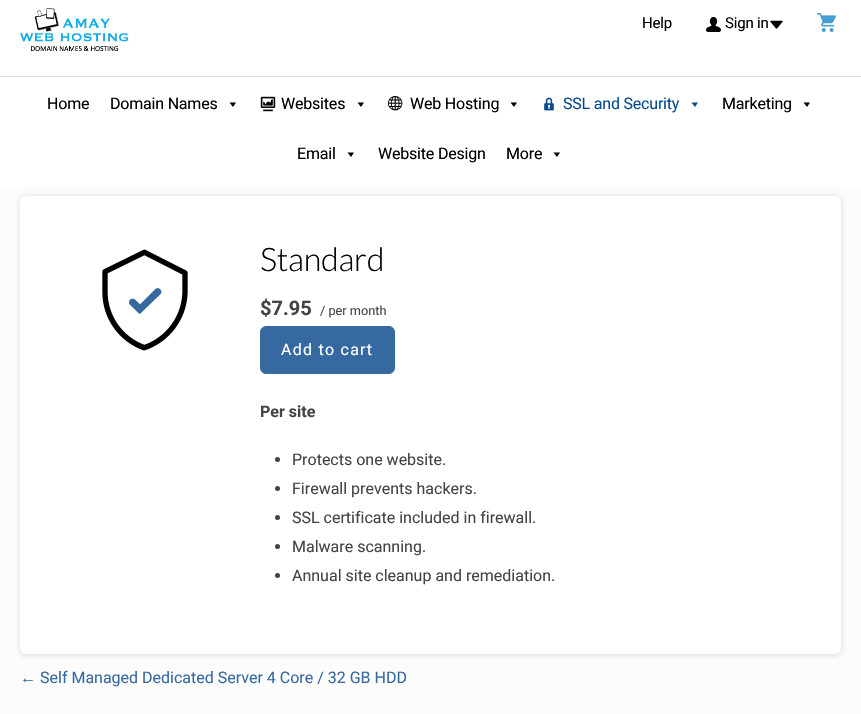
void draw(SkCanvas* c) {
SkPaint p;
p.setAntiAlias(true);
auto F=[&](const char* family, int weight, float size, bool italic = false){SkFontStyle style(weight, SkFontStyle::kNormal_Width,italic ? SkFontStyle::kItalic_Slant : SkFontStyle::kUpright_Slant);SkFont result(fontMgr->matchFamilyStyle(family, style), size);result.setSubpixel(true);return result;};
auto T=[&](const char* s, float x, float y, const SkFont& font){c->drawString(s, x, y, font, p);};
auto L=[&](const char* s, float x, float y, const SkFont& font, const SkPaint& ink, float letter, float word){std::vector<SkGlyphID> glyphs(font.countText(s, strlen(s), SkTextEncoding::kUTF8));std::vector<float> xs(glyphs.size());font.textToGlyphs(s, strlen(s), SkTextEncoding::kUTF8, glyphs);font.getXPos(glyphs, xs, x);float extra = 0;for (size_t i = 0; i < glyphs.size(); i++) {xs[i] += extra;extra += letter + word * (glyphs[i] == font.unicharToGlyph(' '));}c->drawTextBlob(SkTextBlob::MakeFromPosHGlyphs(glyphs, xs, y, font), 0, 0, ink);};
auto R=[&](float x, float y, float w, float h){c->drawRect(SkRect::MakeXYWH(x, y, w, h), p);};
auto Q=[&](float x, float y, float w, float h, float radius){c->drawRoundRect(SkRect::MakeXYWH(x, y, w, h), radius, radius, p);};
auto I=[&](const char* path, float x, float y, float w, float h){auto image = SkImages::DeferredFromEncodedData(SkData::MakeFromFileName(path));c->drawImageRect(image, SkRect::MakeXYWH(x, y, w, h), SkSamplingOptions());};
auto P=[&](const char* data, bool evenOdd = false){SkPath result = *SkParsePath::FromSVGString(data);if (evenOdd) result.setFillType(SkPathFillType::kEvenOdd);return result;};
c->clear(0xfffcfcfc);
p.setColor(0xffffffff);
R(0,0,861,186);
I("1.png",19,8,110,43);
auto f1 = F("Roboto",400,15);
p.setColor(0xff000000);
L("Help",642,28,f1,p,-.2,0);
I("2.png",706,17,15,15);
L("Sign in",725,28,f1,p,-.2,0);
I("3.png",770,20,13,9);
I("4.png",817,13,19,19);
p.setColor(0xffdddddd);
R(0,76,861,1);
auto f2 = F("Roboto",400,16);
p.setColor(0xff000000);
L("Home",47,109,f2,p,-.2,0);
L("Domain Names",110,109,f2,p,-.2,0);
c->drawPath(P("M236 102.5l-3 4.5l-3.5-4.5z"),p);
I("5.png",260,96,16,16);
L("Websites",281,109,f2,p,-.2,0);
c->drawPath(P("M364 102.5l-3 4.5l-3.5-4.5z"),p);
I("6.png",388,96,15,15);
L("Web Hosting",410,109,f2,p,-.2,0);
c->drawPath(P("M517 102.5l-3 4.5l-3.5-4.5z"),p);
I("7.png",544,97,10,14);
p.setColor(0xff084b8d);
L("SSL and Security",563,109,f2,p,-.2,0);
c->drawPath(P("M698 102.5l-3 4.5l-3.5-4.5z"),p);
p.setColor(0xff000000);
L("Marketing",722,109,f2,p,-.2,0);
c->drawPath(P("M810 102.5l-3 4.5l-3.5-4.5z"),p);
L("Email",297,159,f2,p,-.2,0);
c->drawPath(P("M354 152.5l-3 4.5l-3.5-4.5z"),p);
L("Website Design",378,159,f2,p,-.2,0);
L("More",506,159,f2,p,-.2,0);
c->drawPath(P("M560 152.5l-3 4.5l-3.5-4.5z"),p);
p.setColor(0x40666666);
p.setMaskFilter(SkMaskFilter::MakeBlur(kNormal_SkBlurStyle, 3));
c->drawRoundRect(SkRect::MakeXYWH(20,197,821,458),6,6,p);
p.setMaskFilter(nullptr);
p.setColor(0xffffffff);
Q(20,196,821,458,6);
I("8.png",102,249,86,102);
auto f3 = F("Lato",300,32.5);
p.setColor(0xff000000);
L("Standard",260,271,f3,p,-.25,0);
auto f4 = F("Roboto",700,20);
p.setColor(0xff444444);
T("$7.95",260,315,f4);
auto f5 = F("Roboto",400,12.75);
T("/ per month",320,315,f5);
p.setColor(0xff36699f);
c->drawRoundRect(SkRect::MakeXYWH(260.5,326.5,134,47),5.5,5.5,p);
p.setStroke(true);
p.setStrokeWidth(1);
c->drawRoundRect(SkRect::MakeXYWH(260.5,326.5,134,47),5.5,5.5,p);
p.setStroke(false);
p.setColor(0xffffffff);
L("Add to cart",281,355,f2,p,1.25,0);
auto f6 = F("Roboto",700,16);
p.setColor(0xff444444);
T("Per site",260,417,f6);
c->drawCircle(277.5,459.5,2.5,p);
T("Protects one website.",292,465,f2);
c->drawCircle(277.5,488.5,2.5,p);
T("Firewall prevents hackers.",292,494,f2);
c->drawCircle(277.5,517.5,2.5,p);
T("SSL certificate included in firewall.",292,523,f2);
c->drawCircle(277.5,546.5,2.5,p);
T("Malware scanning.",292,552,f2);
c->drawCircle(277.5,575.5,2.5,p);
T("Annual site cleanup and remediation.",292,581,f2);
auto f7 = F("Liberation Sans",400,16);
p.setColor(0xff36699f);
T("←",20,683,f7);
T("Self Managed Dedicated Server 4 Core / 32 GB HDD",40,683,f2);
}
